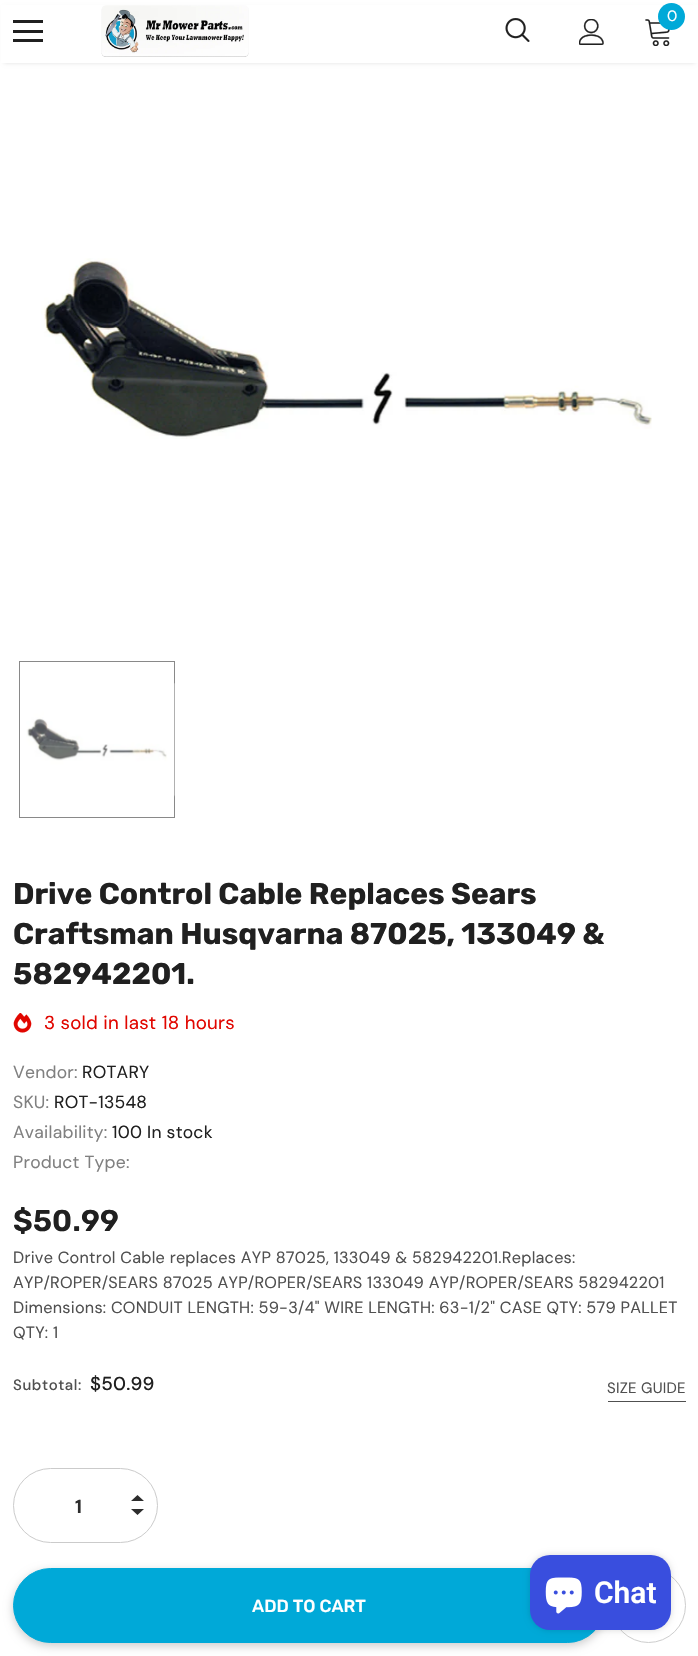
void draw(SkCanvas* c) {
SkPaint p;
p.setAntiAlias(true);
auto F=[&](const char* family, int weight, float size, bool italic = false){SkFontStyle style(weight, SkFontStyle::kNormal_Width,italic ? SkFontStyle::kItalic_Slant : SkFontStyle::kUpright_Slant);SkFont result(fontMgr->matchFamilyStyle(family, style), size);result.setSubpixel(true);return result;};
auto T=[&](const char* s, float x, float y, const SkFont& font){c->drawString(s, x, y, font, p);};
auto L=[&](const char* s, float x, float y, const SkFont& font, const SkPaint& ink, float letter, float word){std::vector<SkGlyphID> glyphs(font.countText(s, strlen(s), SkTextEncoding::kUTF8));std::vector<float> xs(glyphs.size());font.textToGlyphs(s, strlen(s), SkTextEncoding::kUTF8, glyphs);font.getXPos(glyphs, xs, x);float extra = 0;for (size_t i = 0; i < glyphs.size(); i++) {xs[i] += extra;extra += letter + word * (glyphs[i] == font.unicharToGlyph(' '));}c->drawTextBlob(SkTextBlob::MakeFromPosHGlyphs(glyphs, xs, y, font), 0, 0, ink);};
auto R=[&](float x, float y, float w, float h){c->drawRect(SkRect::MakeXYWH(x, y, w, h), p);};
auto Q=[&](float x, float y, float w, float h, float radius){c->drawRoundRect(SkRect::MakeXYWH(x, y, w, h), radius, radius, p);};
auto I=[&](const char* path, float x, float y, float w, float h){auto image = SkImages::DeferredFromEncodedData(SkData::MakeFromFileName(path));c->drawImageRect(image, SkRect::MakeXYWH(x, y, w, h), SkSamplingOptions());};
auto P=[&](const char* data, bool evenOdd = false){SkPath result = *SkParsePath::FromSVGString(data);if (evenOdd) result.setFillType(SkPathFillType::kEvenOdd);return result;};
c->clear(0xffffffff);
p.setColor(0x1f000000);
p.setMaskFilter(SkMaskFilter::MakeBlur(kNormal_SkBlurStyle, 2));
c->drawRect(SkRect::MakeXYWH(4,8,691,55),p);
p.setMaskFilter(nullptr);
p.setColor(0xffffffff);
R(1,5,697,58);
p.setColor(0xff202020);
R(13,20,30,3);
R(13,30,30,3);
R(13,39,30,3);
I("1.png",101,5,148,52);
I("2.png",645,19,25,27);
p.setColor(0xff00a9d8);
c->drawCircle(671.5,16.5,13.5,p);
auto f1 = F("DM Sans",400,15);
p.setColor(0xffffffff);
T("0",667,21,f1);
I("3.png",505,18,25,24);
I("4.png",579,19,25,26);
I("5.png",41,258,611,181);
p.setStroke(true);
p.setStrokeWidth(1);
p.setColor(0xff898989);
c->drawRect(SkRect::MakeXYWH(19.5,661.5,155,156),p);
I("6.png",26,683,149,114);
auto f2 = F("Rubik",700,30);
p.setStroke(false);
p.setColor(0xff202020);
T("Drive Control Cable Replaces Sears",13,904,f2);
T("Craftsman Husqvarna 87025, 133049 &",13,944,f2);
T("582942201.",13,984,f2);
I("7.png",13,1013,19,20);
auto f3 = F("DM Sans",400,18.75);
p.setColor(0xffe10600);
L("3 sold in last 18 hours",44,1029,f3,p,.25,0);
auto f4 = F("DM Sans",400,17.5);
p.setColor(0xff808080);
L("Vendor:",13,1078,f4,p,.25,0);
p.setColor(0xff202020);
L("ROTARY",82,1078,f4,p,.25,0);
p.setColor(0xff808080);
L("SKU:",13,1108,f4,p,.25,0);
p.setColor(0xff202020);
L("ROT-13548",54,1108,f4,p,.25,0);
p.setColor(0xff808080);
L("Availability:",13,1138,f4,p,.25,0);
p.setColor(0xff202020);
L("100 In stock",112,1138,f4,p,.25,0);
p.setColor(0xff808080);
L("Product Type:",13,1168,f4,p,.25,0);
auto f5 = F("Rubik",600,30);
p.setColor(0xff202020);
L("$50.99",13,1231,f5,p,.25,0);
auto f6 = F("DM Sans",400,16.25);
p.setColor(0xff505050);
L("Drive Control Cable replaces AYP 87025, 133049 & 582942201.Replaces:",13,1263,f6,p,.25,0);
L("AYP/ROPER/SEARS 87025 AYP/ROPER/SEARS 133049 AYP/ROPER/SEARS 582942201",13,1288,f6,p,.25,0);
L("Dimensions: CONDUIT LENGTH: 59-3/4\" WIRE LENGTH: 63-1/2\" CASE QTY: 579 PALLET",13,1313,f6,p,.25,0);
L("QTY: 1",13,1338,f6,p,.25,0);
auto f7 = F("DM Sans",500,15);
L("Subtotal:",13,1390,f7,p,.6,0);
auto f8 = F("DM Sans",500,18.75);
p.setColor(0xff202020);
L("$50.99",90,1390,f8,p,.25,0);
p.setColor(0xff505050);
R(608,1401,78,1);
L("SIZE GUIDE",607,1393,f1,p,.25,0);
p.setStroke(true);
p.setColor(0xffcbcbcb);
c->drawRoundRect(SkRect::MakeXYWH(13.5,1468.5,144,74),37,37,p);
auto f9 = F("DM Sans",700,18.75);
p.setStroke(false);
p.setColor(0xff2d2d2d);
T("1",75,1513,f9);
c->drawPath(P("M131 1509h13l-6.5 6zm13-8h-13l6.5-6z"),p);
p.setColor(0x33000000);
p.setMaskFilter(SkMaskFilter::MakeBlur(kNormal_SkBlurStyle, 5));
c->drawRoundRect(SkRect::MakeXYWH(13,1571,592,75),37.5,37.5,p);
p.setMaskFilter(nullptr);
p.setColor(0xff00a9d8);
c->drawRoundRect(SkRect::MakeXYWH(13.5,1568.5,591,74),37,37,p);
p.setStroke(true);
c->drawRoundRect(SkRect::MakeXYWH(13.5,1568.5,591,74),37,37,p);
auto f10 = F("Rubik",500,17.5);
p.setStroke(false);
p.setColor(0xffffffff);
T("ADD TO CART",252,1612,f10);
p.setStroke(true);
p.setColor(0xffcdcdcd);
c->drawCircle(648.5,1605.5,37,p);
p.setStroke(false);
p.setColor(0x26000000);
p.setMaskFilter(SkMaskFilter::MakeBlur(kNormal_SkBlurStyle, 3));
c->drawRoundRect(SkRect::MakeXYWH(530,1555,141,75),20,20,p);
p.setMaskFilter(nullptr);
p.setColor(0xff394ede);
Q(530,1555,141,75,20);
I("8.png",545,1577,37,37);
auto f11 = F("Roboto",600,30);
p.setColor(0xffffffff);
T("Chat",594,1603,f11);
}
